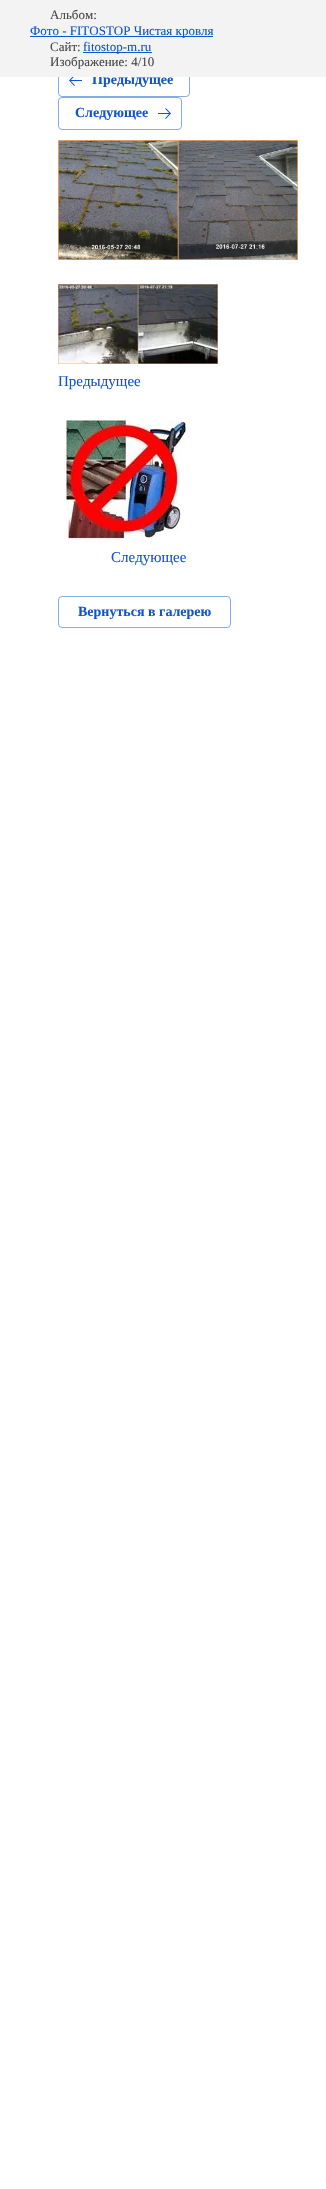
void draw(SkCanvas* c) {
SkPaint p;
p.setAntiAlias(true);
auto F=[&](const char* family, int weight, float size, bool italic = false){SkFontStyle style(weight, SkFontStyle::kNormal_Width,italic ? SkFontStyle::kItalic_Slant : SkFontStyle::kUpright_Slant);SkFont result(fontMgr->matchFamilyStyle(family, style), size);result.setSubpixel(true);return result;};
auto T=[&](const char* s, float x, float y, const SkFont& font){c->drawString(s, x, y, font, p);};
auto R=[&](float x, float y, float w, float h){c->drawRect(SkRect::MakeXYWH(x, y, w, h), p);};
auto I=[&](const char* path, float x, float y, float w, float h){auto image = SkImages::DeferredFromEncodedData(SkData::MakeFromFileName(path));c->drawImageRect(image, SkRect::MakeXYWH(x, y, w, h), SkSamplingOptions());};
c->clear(0xffffffff);
p.setStroke(true);
p.setStrokeWidth(1);
p.setColor(0xff88aae6);
c->drawRoundRect(SkRect::MakeXYWH(58.5,64.5,131,32),3.5,3.5,p);
auto f1 = F("Liberation Serif",700,14);
p.setStroke(false);
p.setColor(0xff1155cc);
T("Предыдущее",92,84,f1);
p.setColor(0xfff3f3f3);
R(0,0,326,77);
auto f2 = F("Liberation Serif",400,13);
p.setColor(0xff484848);
T("Альбом:",50,19,f2);
p.setColor(0xff1155cc);
R(30,36,183,1);
T("Фото - FITOSTOP Чистая кровля",30,35,f2);
p.setColor(0xff484848);
T("Сайт:",50,51,f2);
p.setColor(0xff1155cc);
R(83,52,69,1);
T("fitostop-m.ru",83,51,f2);
p.setColor(0xff484848);
T("Изображение: 4/10",50,66,f2);
I("1.png",69,77,13,9);
p.setStroke(true);
p.setColor(0xff88aae6);
c->drawRoundRect(SkRect::MakeXYWH(58.5,97.5,123,32),3.5,3.5,p);
p.setStroke(false);
p.setColor(0xff1155cc);
T("Следующее",75,117,f1);
I("2.png",158,108,13,11);
I("3.png",58,140,240,120);
I("4.png",58,284,160,80);
auto f3 = F("Liberation Serif",400,15);
T("Предыдущее",58,386,f3);
I("5.png",66,420,120,120);
T("Следующее",111,562,f3);
p.setStroke(true);
p.setColor(0xff88aae6);
c->drawRoundRect(SkRect::MakeXYWH(58.5,596.5,172,31),3.5,3.5,p);
p.setStroke(false);
p.setColor(0xff1155cc);
T("Вернуться в галерею",78,616,f1);
}
